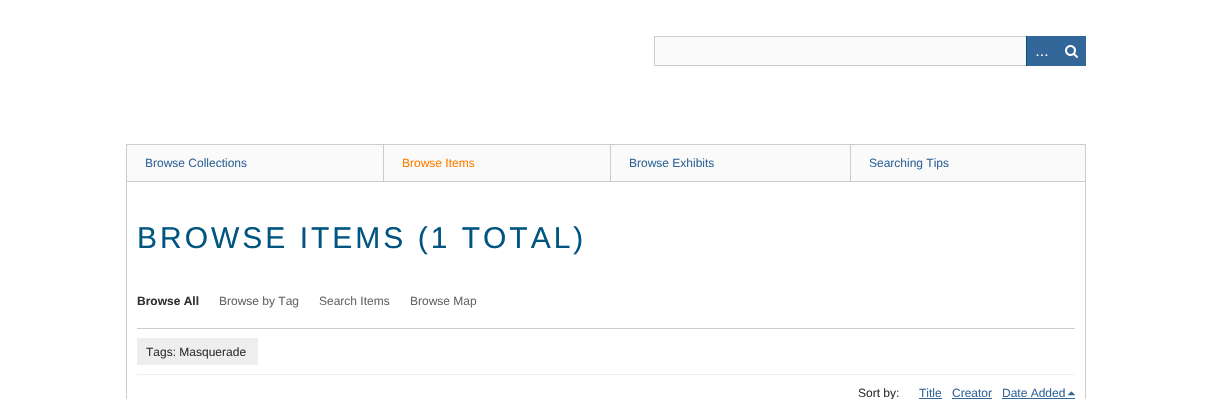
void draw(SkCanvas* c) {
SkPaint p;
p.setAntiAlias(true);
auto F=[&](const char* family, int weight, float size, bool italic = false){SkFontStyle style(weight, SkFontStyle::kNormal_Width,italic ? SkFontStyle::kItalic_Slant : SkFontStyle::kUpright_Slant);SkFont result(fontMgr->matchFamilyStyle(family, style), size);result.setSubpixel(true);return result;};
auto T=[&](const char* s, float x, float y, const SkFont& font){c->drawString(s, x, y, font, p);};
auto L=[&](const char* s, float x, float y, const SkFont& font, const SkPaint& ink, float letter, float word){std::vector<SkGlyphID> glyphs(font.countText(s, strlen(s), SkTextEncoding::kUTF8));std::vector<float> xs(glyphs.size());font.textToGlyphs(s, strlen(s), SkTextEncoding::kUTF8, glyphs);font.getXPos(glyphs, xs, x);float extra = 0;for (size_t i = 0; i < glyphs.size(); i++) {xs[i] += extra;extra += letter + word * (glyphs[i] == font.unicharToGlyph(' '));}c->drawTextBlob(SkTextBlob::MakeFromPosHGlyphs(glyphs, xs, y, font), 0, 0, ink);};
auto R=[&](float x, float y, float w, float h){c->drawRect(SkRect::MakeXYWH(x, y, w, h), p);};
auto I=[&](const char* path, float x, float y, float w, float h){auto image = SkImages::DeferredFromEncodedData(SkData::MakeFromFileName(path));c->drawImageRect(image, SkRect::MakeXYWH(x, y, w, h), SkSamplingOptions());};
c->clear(0xffffffff);
p.setColor(0xfffafafa);
R(655,37,371,28);
p.setStroke(true);
p.setStrokeWidth(1);
p.setColor(0xffcccccc);
c->drawRect(SkRect::MakeXYWH(654.5,36.5,431,29),p);
p.setStroke(false);
p.setColor(0xff005177);
R(1026,36,1,30);
p.setColor(0xff336699);
R(1027,36,59,30);
auto f1 = F("Liberation Sans",400,14);
p.setColor(0xffffffff);
T("…",1035,56,f1);
I("1.png",1065,45,13,13);
p.setColor(0xffcccccc);
R(1085,144,1,37);
p.setColor(0xfffafafa);
R(127,145,256,36);
p.setColor(0xffcccccc);
R(126,144,257,1);
R(126,144,1,37);
auto f2 = F("Liberation Sans",400,12);
p.setColor(0xff336699);
T("Browse Collections",145,167,f2);
p.setColor(0xfffafafa);
R(384,145,226,36);
p.setColor(0xffcccccc);
R(383,144,702,1);
R(383,144,1,37);
p.setColor(0xffff8000);
T("Browse Items",402,167,f2);
p.setColor(0xfffafafa);
R(611,145,239,36);
p.setColor(0xffcccccc);
R(610,144,1,37);
p.setColor(0xff336699);
T("Browse Exhibits",629,167,f2);
p.setColor(0xfffafafa);
R(851,145,234,36);
p.setColor(0xffcccccc);
R(850,144,1,37);
p.setColor(0xff336699);
T("Searching Tips",869,167,f2);
p.setStroke(true);
p.setColor(0xffcccccc);
c->drawRect(SkRect::MakeXYWH(126.5,181.5,959,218),p);
auto f3 = F("Liberation Sans",400,30);
p.setStroke(false);
p.setColor(0xff015581);
L("BROWSE ITEMS (1 TOTAL)",137,248,f3,p,3,0);
p.setColor(0xffcccccc);
R(137,328,938,1);
auto f4 = F("Liberation Sans",700,12);
p.setColor(0xff333333);
T("Browse All",137,305,f4);
p.setColor(0xff666666);
T("Browse by Tag",219,305,f2);
T("Search Items",319,305,f2);
T("Browse Map",410,305,f2);
p.setColor(0xffeeeeee);
R(137,374,938,1);
R(137,338,121,27);
p.setColor(0xff333333);
T("Tags: Masquerade",146,356,f2);
T("Sort by:",858,397,f2);
p.setColor(0xff336699);
T("Title",919,397,f2);
R(919,398,23,1);
T("Creator",952,397,f2);
R(952,398,40,1);
T("Date Added",1002,397,f2);
R(1002,398,73,1);
I("2.png",1068,391,7,5);
}
